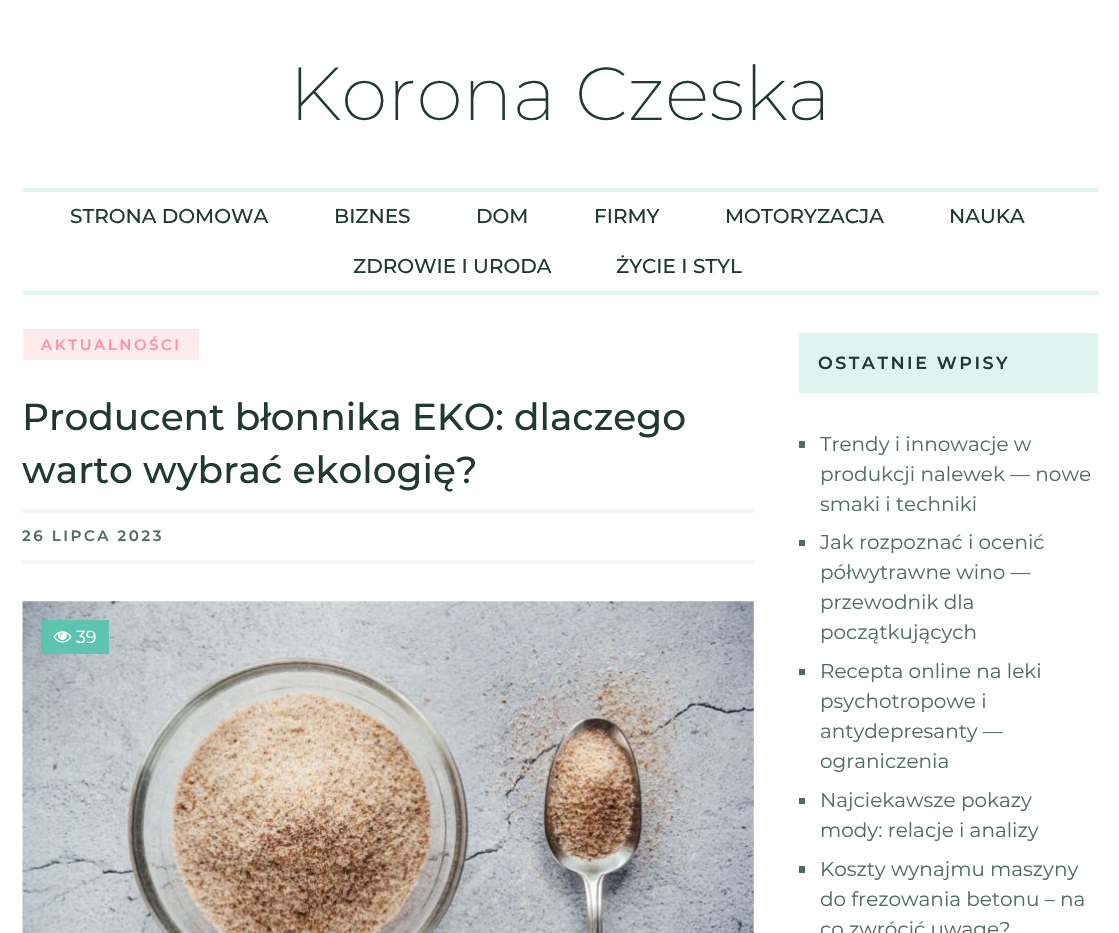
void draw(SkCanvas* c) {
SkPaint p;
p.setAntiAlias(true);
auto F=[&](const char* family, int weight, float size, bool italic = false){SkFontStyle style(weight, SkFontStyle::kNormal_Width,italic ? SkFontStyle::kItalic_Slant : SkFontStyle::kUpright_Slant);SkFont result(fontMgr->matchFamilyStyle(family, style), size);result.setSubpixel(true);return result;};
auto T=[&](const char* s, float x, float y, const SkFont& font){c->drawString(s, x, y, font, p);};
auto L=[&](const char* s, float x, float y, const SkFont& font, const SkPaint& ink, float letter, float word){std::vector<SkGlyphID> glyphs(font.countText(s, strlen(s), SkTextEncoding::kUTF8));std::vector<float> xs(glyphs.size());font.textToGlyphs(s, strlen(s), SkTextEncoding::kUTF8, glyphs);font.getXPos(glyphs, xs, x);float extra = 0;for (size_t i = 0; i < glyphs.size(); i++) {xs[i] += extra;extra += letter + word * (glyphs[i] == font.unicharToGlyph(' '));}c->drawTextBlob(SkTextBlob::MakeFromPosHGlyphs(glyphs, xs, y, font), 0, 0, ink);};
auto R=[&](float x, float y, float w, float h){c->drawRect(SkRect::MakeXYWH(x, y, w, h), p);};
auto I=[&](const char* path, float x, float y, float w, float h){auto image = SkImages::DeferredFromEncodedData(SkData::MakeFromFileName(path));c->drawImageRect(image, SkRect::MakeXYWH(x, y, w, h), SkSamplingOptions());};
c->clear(0xffffffff);
auto f1 = F("Montserrat",200,75);
p.setColor(0xff213833);
T("Korona Czeska",289,120,f1);
p.setColor(0xffdff3ef);
R(23,188,1075,4);
R(23,291,1075,4);
auto f2 = F("Montserrat",500,20);
p.setColor(0xff213833);
T("STRONA DOMOWA",70,223,f2);
T("BIZNES",334,223,f2);
T("DOM",476,223,f2);
T("FIRMY",594,223,f2);
T("MOTORYZACJA",725,223,f2);
T("NAUKA",949,223,f2);
T("ZDROWIE I URODA",353,273,f2);
T("ŻYCIE I STYL",616,273,f2);
p.setColor(0xffffeaed);
R(23,329,176,31);
auto f3 = F("Montserrat",600,15);
p.setColor(0xffff94a3);
L("AKTUALNOŚCI",41,350,f3,p,2.5,0);
auto f4 = F("Montserrat",500,37.5);
p.setColor(0xff213833);
T("Producent błonnika EKO: dlaczego",22,430,f4);
T("warto wybrać ekologię?",22,483,f4);
p.setColor(0xfff5f5f5);
R(23,509,731,4);
R(23,560,731,4);
p.setColor(0xff536b66);
L("26 LIPCA 2023",22,541,f3,p,2.5,0);
I("1.png",22,601,732,332);
p.setColor(0xff5ec4af);
R(41,620,68,34);
I("2.png",53,631,19,12);
auto f5 = F("Montserrat",400,17.5);
p.setColor(0xffffffff);
T("39",76,643,f5);
p.setColor(0xffdff3ef);
R(799,333,299,60);
auto f6 = F("Montserrat",600,17.5);
p.setColor(0xff213833);
L("OSTATNIE WPISY",818,369,f6,p,2.5,0);
p.setColor(0xff536b66);
R(799,441,6,7);
auto f7 = F("Montserrat",400,20);
T("Trendy i innowacje w",820,451,f7);
T("produkcji nalewek — nowe",820,481,f7);
T("smaki i techniki",820,511,f7);
R(799,540,6,6);
T("Jak rozpoznać i ocenić",820,549,f7);
T("półwytrawne wino —",820,579,f7);
T("przewodnik dla",820,609,f7);
T("początkujących",820,639,f7);
R(799,669,6,6);
T("Recepta online na leki",820,678,f7);
T("psychotropowe i",820,708,f7);
T("antydepresanty —",820,738,f7);
T("ograniczenia",820,768,f7);
R(799,798,6,6);
T("Najciekawsze pokazy",820,807,f7);
T("mody: relacje i analizy",820,837,f7);
R(799,866,6,7);
T("Koszty wynajmu maszyny",820,876,f7);
T("do frezowania betonu – na",820,906,f7);
T("co zwrócić uwagę?",820,936,f7);
}
